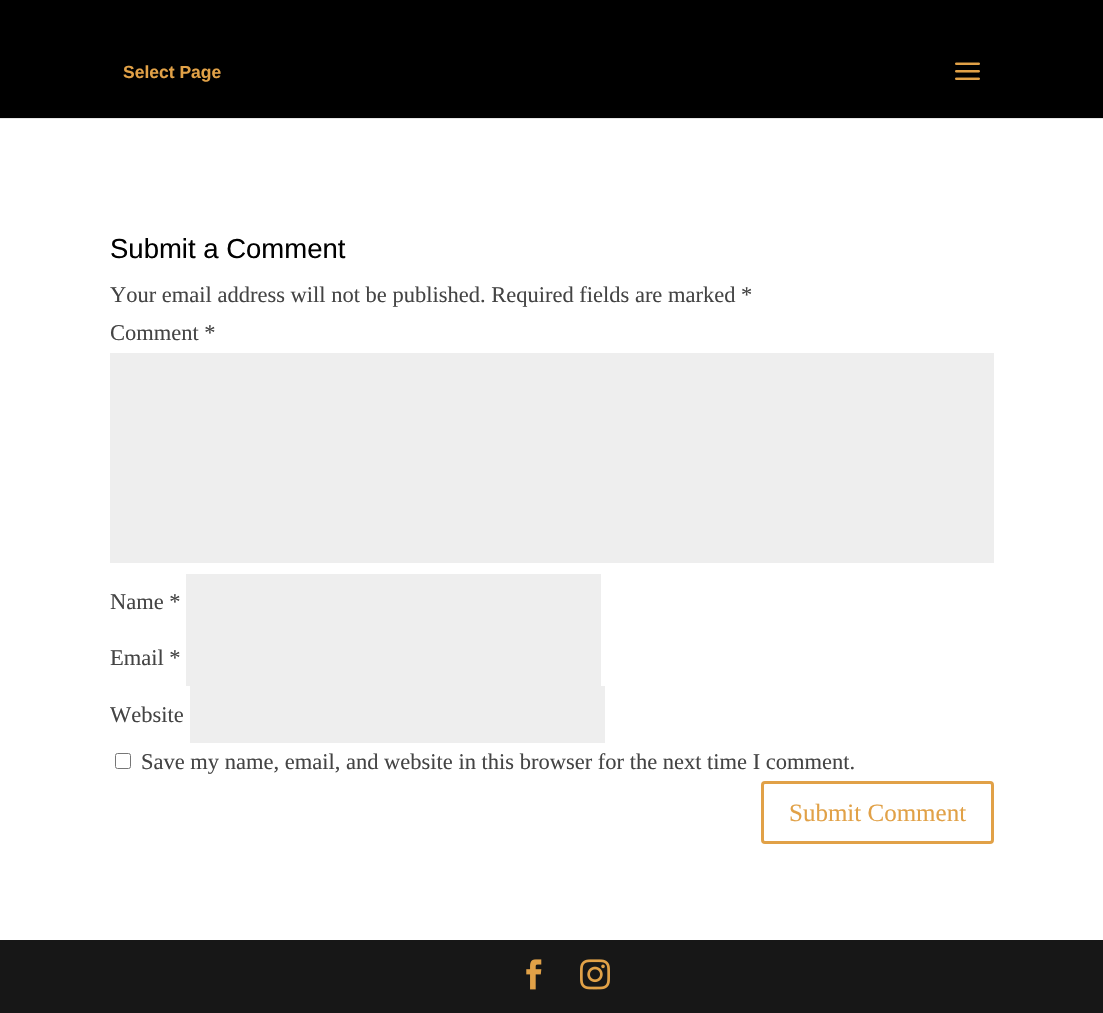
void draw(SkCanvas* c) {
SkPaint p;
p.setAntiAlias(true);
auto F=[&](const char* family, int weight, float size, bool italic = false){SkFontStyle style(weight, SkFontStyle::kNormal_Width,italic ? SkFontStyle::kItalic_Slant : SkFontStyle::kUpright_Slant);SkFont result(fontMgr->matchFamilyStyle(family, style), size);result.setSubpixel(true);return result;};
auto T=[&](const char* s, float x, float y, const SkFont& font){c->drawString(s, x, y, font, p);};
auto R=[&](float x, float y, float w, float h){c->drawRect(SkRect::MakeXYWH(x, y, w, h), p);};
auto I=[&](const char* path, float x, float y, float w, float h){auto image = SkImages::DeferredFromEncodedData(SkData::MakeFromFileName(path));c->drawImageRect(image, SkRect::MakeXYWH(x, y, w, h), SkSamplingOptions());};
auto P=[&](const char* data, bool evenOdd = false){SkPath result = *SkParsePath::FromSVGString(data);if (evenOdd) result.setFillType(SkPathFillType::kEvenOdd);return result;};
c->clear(0xffffffff);
p.setColor(0xffe6e6e6);
c->drawPath(P("M0 118v1h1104v-118v117z"),p);
p.setColor(0xff000000);
R(0,0,1103,118);
auto f1 = F("Liberation Sans",700,17.5);
p.setColor(0xffe1a147);
T("Select Page",123,78,f1);
I("1.png",955,62,25,18);
auto f2 = F("Liberation Sans",400,27.5);
p.setColor(0xff000000);
T("Submit a Comment",110,258,f2);
auto f3 = F("Liberation Serif",400,22.5);
p.setColor(0xff444444);
T("Your email address will not be published. Required fields are marked *",110,302,f3);
T("Comment *",110,340,f3);
p.setColor(0xffeeeeee);
R(110,353,884,210);
p.setColor(0xff444444);
T("Name *",110,609,f3);
p.setColor(0xffeeeeee);
R(186,574,415,112);
p.setColor(0xff444444);
T("Email *",110,665,f3);
T("Website",110,722,f3);
p.setColor(0xffeeeeee);
R(190,686,415,57);
p.setStroke(true);
p.setStrokeWidth(1);
p.setColor(0xff767676);
c->drawRoundRect(SkRect::MakeXYWH(115.5,753.5,15,15),2,2,p);
p.setStroke(false);
p.setColor(0xff444444);
T("Save my name, email, and website in this browser for the next time I comment.",141,769,f3);
p.setStroke(true);
p.setStrokeWidth(3);
p.setColor(0xffe1a147);
c->drawRoundRect(SkRect::MakeXYWH(762.5,782.5,230,60),2.5,2.5,p);
auto f4 = F("Liberation Serif",400,25);
p.setStroke(false);
T("Submit Comment",789,821,f4);
p.setColor(0xff171717);
R(0,940,1103,73);
I("2.png",526,959,16,31);
I("3.png",580,959,30,31);
}
